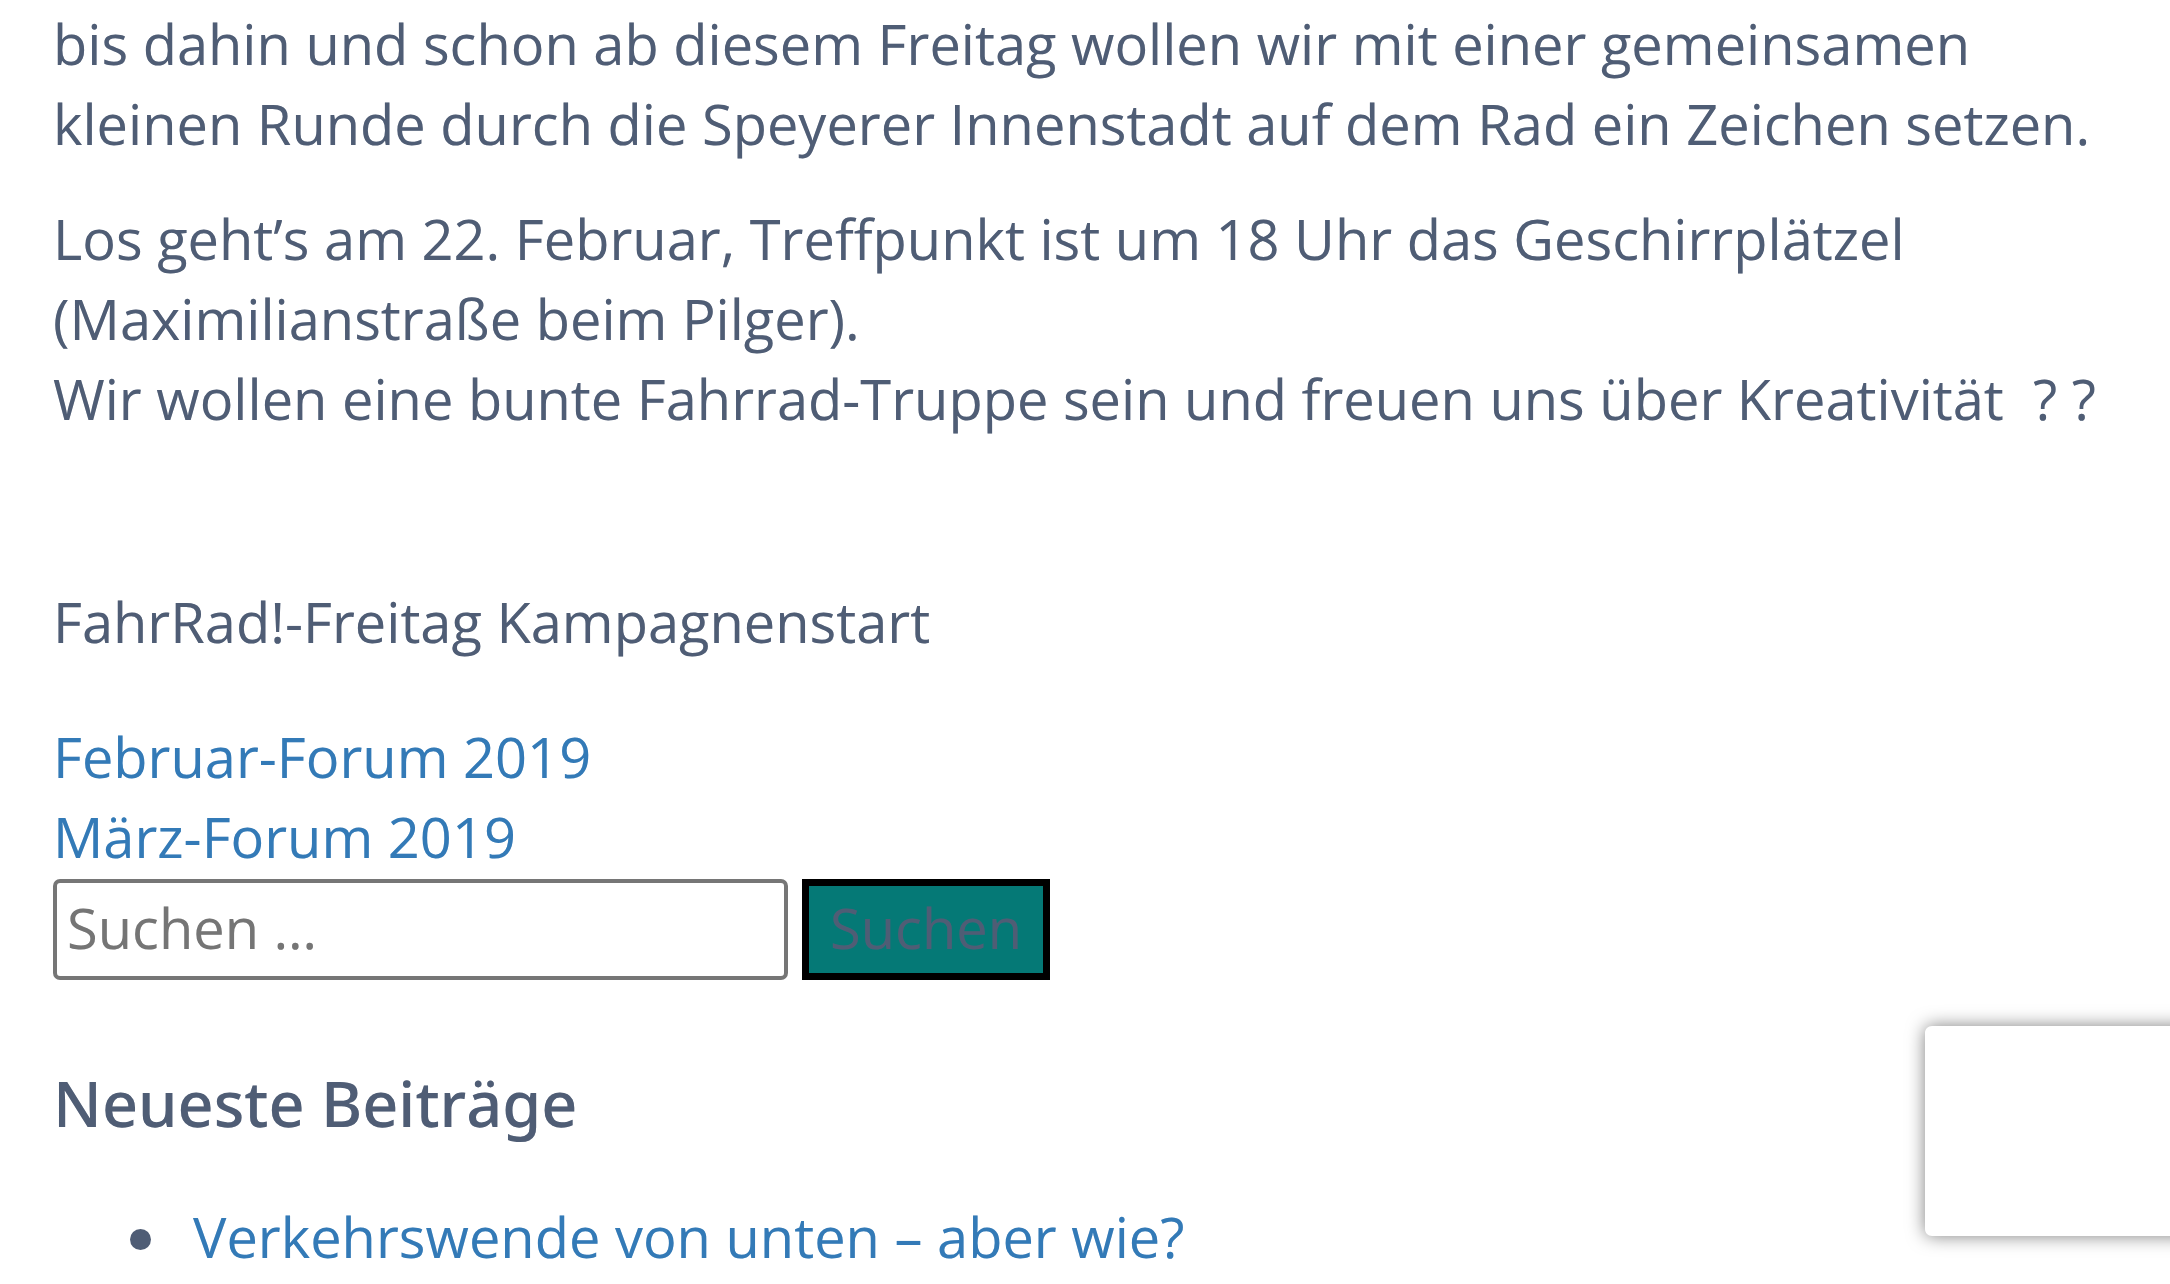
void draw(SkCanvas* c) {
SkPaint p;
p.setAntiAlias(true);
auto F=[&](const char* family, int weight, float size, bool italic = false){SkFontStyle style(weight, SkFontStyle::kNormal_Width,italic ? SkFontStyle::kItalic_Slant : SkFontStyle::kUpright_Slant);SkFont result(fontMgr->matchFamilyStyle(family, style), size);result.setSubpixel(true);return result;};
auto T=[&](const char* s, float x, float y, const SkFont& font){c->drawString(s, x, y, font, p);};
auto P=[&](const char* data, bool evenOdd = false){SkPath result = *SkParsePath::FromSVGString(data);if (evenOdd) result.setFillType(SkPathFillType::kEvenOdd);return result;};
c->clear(0xffffffff);
auto f1 = F("Open Sans",400,56);
p.setColor(0xff4f5d75);
T("bis dahin und schon ab diesem Freitag wollen wir mit einer gemeinsamen",53,65,f1);
T("kleinen Runde durch die Speyerer Innenstadt auf dem Rad ein Zeichen setzen.",53,145,f1);
T("Los geht’s am 22. Februar, Treffpunkt ist um 18 Uhr das Geschirrplätzel",53,260,f1);
T("(Maximilianstraße beim Pilger).",53,340,f1);
T("Wir wollen eine bunte Fahrrad-Truppe sein und freuen uns über Kreativität  ? ?",53,420,f1);
T("FahrRad!-Freitag Kampagnenstart",53,643,f1);
p.setColor(0xff337ab7);
T("Februar-Forum 2019",53,778,f1);
T("März-Forum 2019",53,858,f1);
p.setStroke(true);
p.setStrokeWidth(4);
p.setColor(0xff767676);
c->drawRoundRect(SkRect::MakeXYWH(55,881,731,97),5,5,p);
p.setStroke(false);
p.setColor(0xff757575);
T("Suchen …",67,949,f1);
p.setColor(0xff057976);
c->drawRect(SkRect::MakeXYWH(805.5,882.5,241,94),p);
p.setStroke(true);
p.setStrokeWidth(7);
p.setColor(0xff000000);
c->drawRect(SkRect::MakeXYWH(805.5,882.5,241,94),p);
p.setStroke(false);
p.setColor(0xff4f5d75);
T("Suchen",830,949,f1);
auto f2 = F("Noto Sans",500,63);
T("Neueste Beiträge",53,1127,f2);
c->drawCircle(140.5,1239.5,10.5,p);
p.setColor(0xff337ab7);
T("Verkehrswende von unten – aber wie?",193,1258,f1);
c->save();
c->clipPath(P("M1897 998h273v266h-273zm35 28h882c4 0 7 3 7 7v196c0 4-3 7-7 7h-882c-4 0-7-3-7-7v-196c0-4 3-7 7-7z",true),true);
p.setColor(0xff808080);
p.setMaskFilter(SkMaskFilter::MakeBlur(kNormal_SkBlurStyle, 9));
c->drawRoundRect(SkRect::MakeXYWH(1925,1026,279,210),7,7,p);
p.setMaskFilter(nullptr);
c->restore();
}
